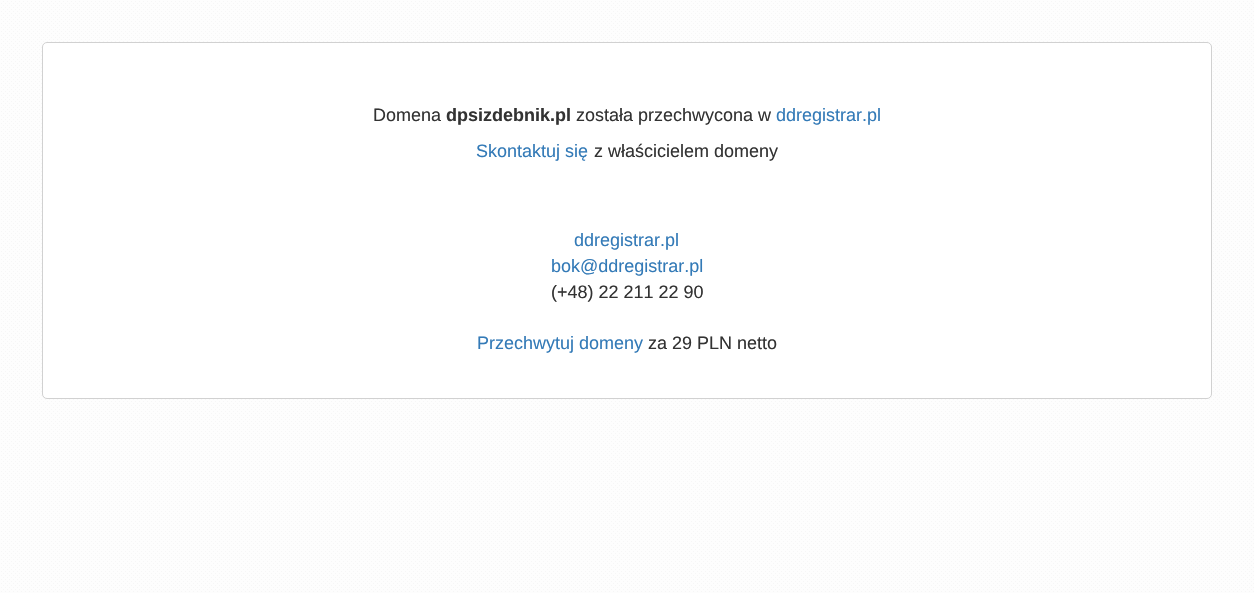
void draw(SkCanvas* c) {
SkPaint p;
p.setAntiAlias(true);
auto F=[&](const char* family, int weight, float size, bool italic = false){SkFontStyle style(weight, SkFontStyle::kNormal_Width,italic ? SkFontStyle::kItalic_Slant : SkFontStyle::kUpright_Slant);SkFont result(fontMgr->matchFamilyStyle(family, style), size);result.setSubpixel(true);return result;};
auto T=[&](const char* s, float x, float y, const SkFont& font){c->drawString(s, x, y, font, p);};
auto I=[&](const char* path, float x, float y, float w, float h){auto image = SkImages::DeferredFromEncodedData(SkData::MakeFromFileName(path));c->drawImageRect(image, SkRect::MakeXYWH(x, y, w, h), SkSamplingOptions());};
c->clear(0xfffdfdfd);
I("1.png",1,1,1253,591);
p.setColor(0xffffffff);
c->drawRoundRect(SkRect::MakeXYWH(42.5,42.5,1169,356),4.5,4.5,p);
p.setStroke(true);
p.setStrokeWidth(1);
p.setColor(0xffd1d1d1);
c->drawRoundRect(SkRect::MakeXYWH(42.5,42.5,1169,356),4.5,4.5,p);
auto f1 = F("Liberation Sans",400,18);
p.setStroke(false);
p.setColor(0xff333333);
T("Domena",373,121,f1);
auto f2 = F("Liberation Sans",700,18);
T("dpsizdebnik.pl",446,121,f2);
T("została przechwycona w",576,121,f1);
p.setColor(0xff337ab7);
T("ddregistrar.pl",776,121,f1);
T("Skontaktuj się",476,157,f1);
p.setColor(0xff333333);
T("z właścicielem domeny",594,157,f1);
p.setColor(0xff337ab7);
T("ddregistrar.pl",574,246,f1);
T("bok@ddregistrar.pl",551,272,f1);
p.setColor(0xff333333);
T("(+48) 22 211 22 90",551,298,f1);
p.setColor(0xff337ab7);
T("Przechwytuj domeny",477,349,f1);
p.setColor(0xff333333);
T("za 29 PLN netto",648,349,f1);
}
